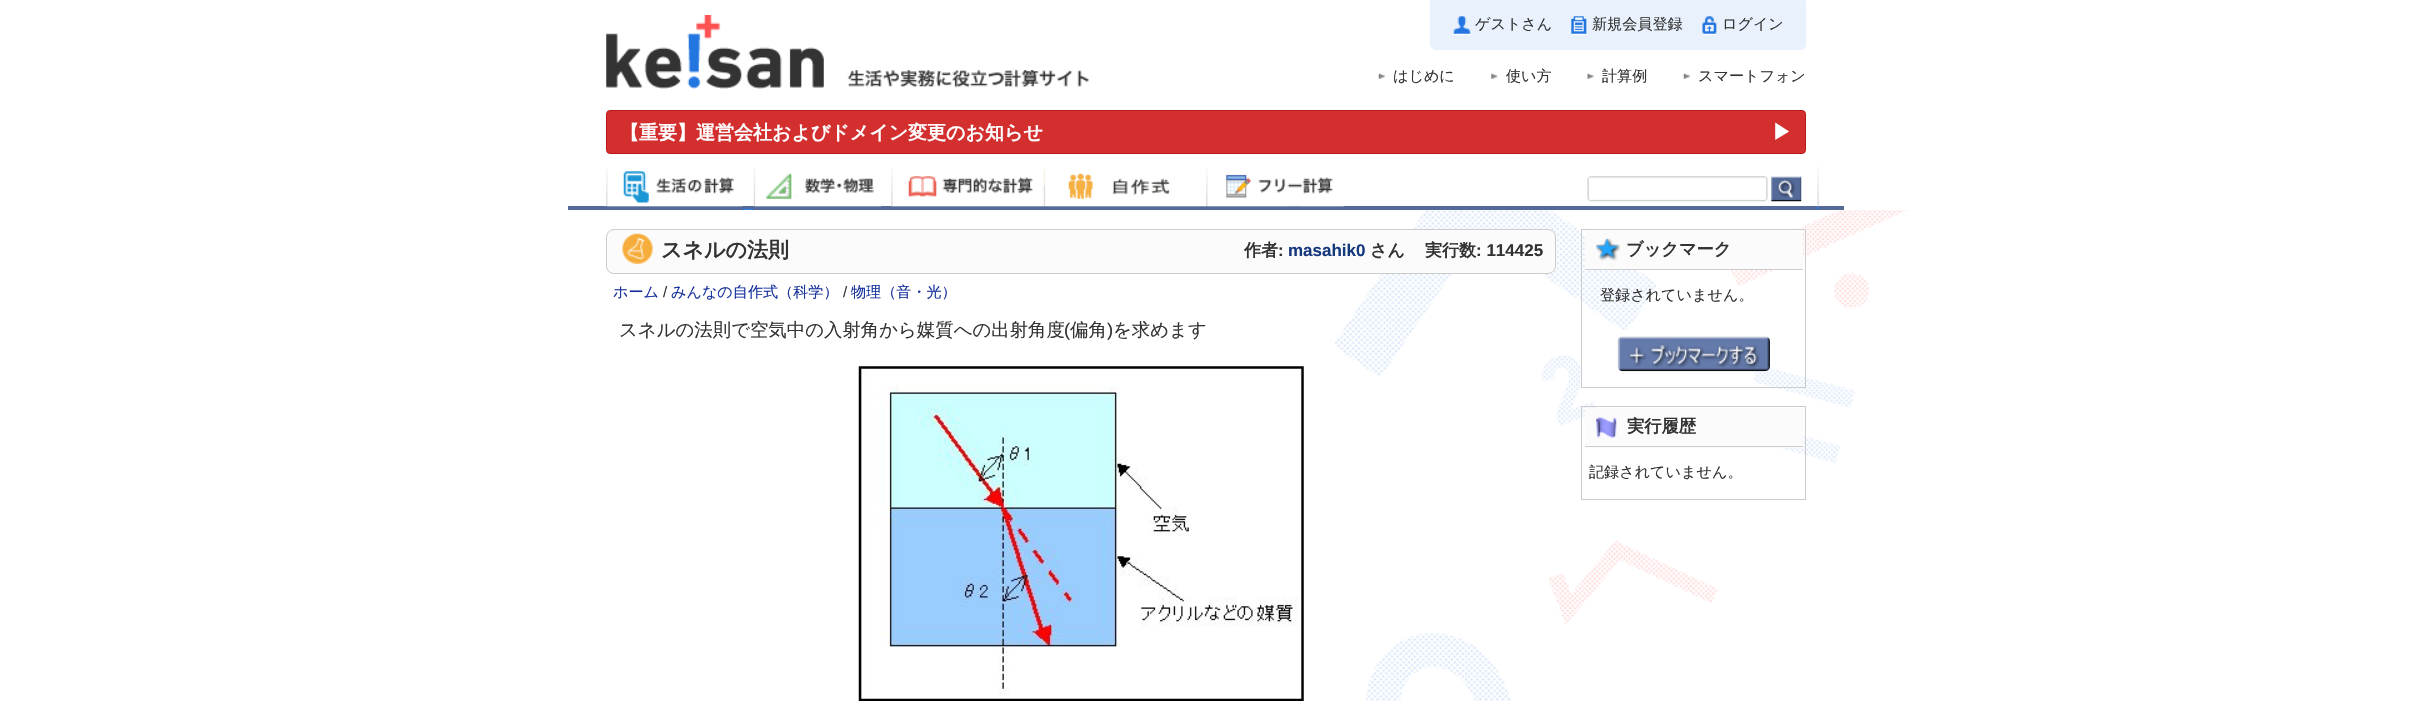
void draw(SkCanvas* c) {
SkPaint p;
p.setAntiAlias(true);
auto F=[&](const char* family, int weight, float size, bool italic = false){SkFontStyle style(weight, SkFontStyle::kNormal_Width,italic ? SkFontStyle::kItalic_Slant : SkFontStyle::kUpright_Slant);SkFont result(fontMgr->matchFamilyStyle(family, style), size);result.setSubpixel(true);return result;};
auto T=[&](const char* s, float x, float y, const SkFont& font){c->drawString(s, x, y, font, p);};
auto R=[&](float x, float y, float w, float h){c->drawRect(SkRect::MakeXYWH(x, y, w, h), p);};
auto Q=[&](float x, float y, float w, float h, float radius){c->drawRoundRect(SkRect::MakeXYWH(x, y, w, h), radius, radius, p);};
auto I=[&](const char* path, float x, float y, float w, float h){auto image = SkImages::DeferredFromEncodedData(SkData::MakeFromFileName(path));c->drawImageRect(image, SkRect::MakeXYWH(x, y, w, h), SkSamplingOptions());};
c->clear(0xffffffff);
I("1.png",1289,210,631,491);
p.setColor(0xff546a99);
R(568,206,1276,4);
I("2.png",606,15,218,74);
I("3.png",847,70,242,18);
p.setColor(0xffe9f1fc);
R(1430,0,376,50);
I("4.png",1430,46,5,4);
I("5.png",1801,5,6,45);
I("6.png",1453,16,18,19);
auto f1 = F("WenQuanYi Zen Hei",500,15.1);
p.setColor(0xff333333);
T("ゲストさん",1475,29,f1);
I("7.png",1571,16,16,19);
T("新規会員登録",1592,29,f1);
I("8.png",1702,16,15,19);
T("ログイン",1722,29,f1);
I("9.png",1378,73,7,6);
T("はじめに",1393,81,f1);
I("10.png",1491,73,7,6);
T("使い方",1506,81,f1);
I("11.png",1587,73,7,6);
T("計算例",1602,81,f1);
I("12.png",1683,73,7,6);
T("スマートフォン",1698,81,f1);
p.setColor(0xffd32f2f);
c->drawRoundRect(SkRect::MakeXYWH(606.5,110.5,1199,43),3.5,3.5,p);
p.setStroke(true);
p.setStrokeWidth(1);
p.setColor(0xffb71c1c);
c->drawRoundRect(SkRect::MakeXYWH(606.5,110.5,1199,43),3.5,3.5,p);
auto f2 = F("WenQuanYi Zen Hei",700,19);
p.setStroke(false);
p.setColor(0xffffffff);
T("【重要】運営会社およびドメイン変更のお知らせ",620,139,f2);
auto f3 = F("WenQuanYi Zen Hei",500,21);
T("▶",1772,139,f3);
I("13.png",606,167,148,43);
I("14.png",753,167,129,43);
I("15.png",891,167,153,40);
I("16.png",1043,167,164,40);
I("17.png",1206,167,138,40);
I("18.png",1817,166,2,44);
I("19.png",1587,176,181,26);
I("20.png",1771,176,31,26);
p.setColor(0xfffbfbfb);
Q(606,229,950,45,8);
I("21.png",622,233,31,31);
p.setStroke(true);
p.setColor(0xffcccccc);
c->drawRoundRect(SkRect::MakeXYWH(606.5,229.5,949,44),7.5,7.5,p);
auto f4 = F("WenQuanYi Zen Hei",700,21);
p.setStroke(false);
p.setColor(0xff333333);
T("スネルの法則",661,257,f4);
auto f5 = F("WenQuanYi Zen Hei",700,17);
T("作者",1244,256,f5);
auto f6 = F("Liberation Sans",700,17);
T(":",1278,256,f6);
p.setColor(0xff16387c);
T("masahik0",1288,256,f6);
p.setColor(0xff333333);
T("さん",1370,256,f5);
T("実行数",1425,256,f5);
T(": 114425",1476,256,f6);
p.setColor(0xff18329d);
T("ホーム",613,297,f1);
auto f7 = F("Liberation Sans",400,15.1);
p.setColor(0xff333333);
T("/",663,297,f7);
p.setColor(0xff18329d);
T("みんなの自作式（科学）",671,297,f1);
p.setColor(0xff333333);
T("/",843,297,f7);
p.setColor(0xff18329d);
T("物理（音・光）",851,297,f1);
auto f8 = F("WenQuanYi Zen Hei",500,18.4);
p.setColor(0xff333333);
T("スネルの法則で空気中の入射角から媒質への出射角度",619,336,f8);
auto f9 = F("Liberation Sans",400,18.4);
T("(",1064,336,f9);
T("偏角",1070,336,f8);
T(")",1107,336,f9);
T("を求めます",1113,336,f8);
I("22.png",858,366,446,335);
p.setStroke(true);
p.setColor(0xffcccccc);
c->drawRect(SkRect::MakeXYWH(1581.5,229.5,224,158),p);
p.setStroke(false);
p.setColor(0xfffbfbfb);
R(1585,230,218,39);
p.setColor(0xffcccccc);
R(1585,269,218,1);
I("23.png",1596,238,24,23);
auto f10 = F("WenQuanYi Zen Hei",700,17.25);
p.setColor(0xff333333);
T("ブックマーク",1626,255,f10);
T("登録されていません。",1600,300,f1);
I("24.png",1617,336,153,36);
p.setStroke(true);
p.setColor(0xffcccccc);
c->drawRect(SkRect::MakeXYWH(1581.5,406.5,224,93),p);
p.setStroke(false);
p.setColor(0xfffbfbfb);
R(1585,408,218,40);
p.setColor(0xffcccccc);
R(1585,446,218,1);
I("25.png",1596,417,21,21);
p.setColor(0xff333333);
T("実行履歴",1627,432,f10);
T("記録されていません。",1589,477,f1);
}
